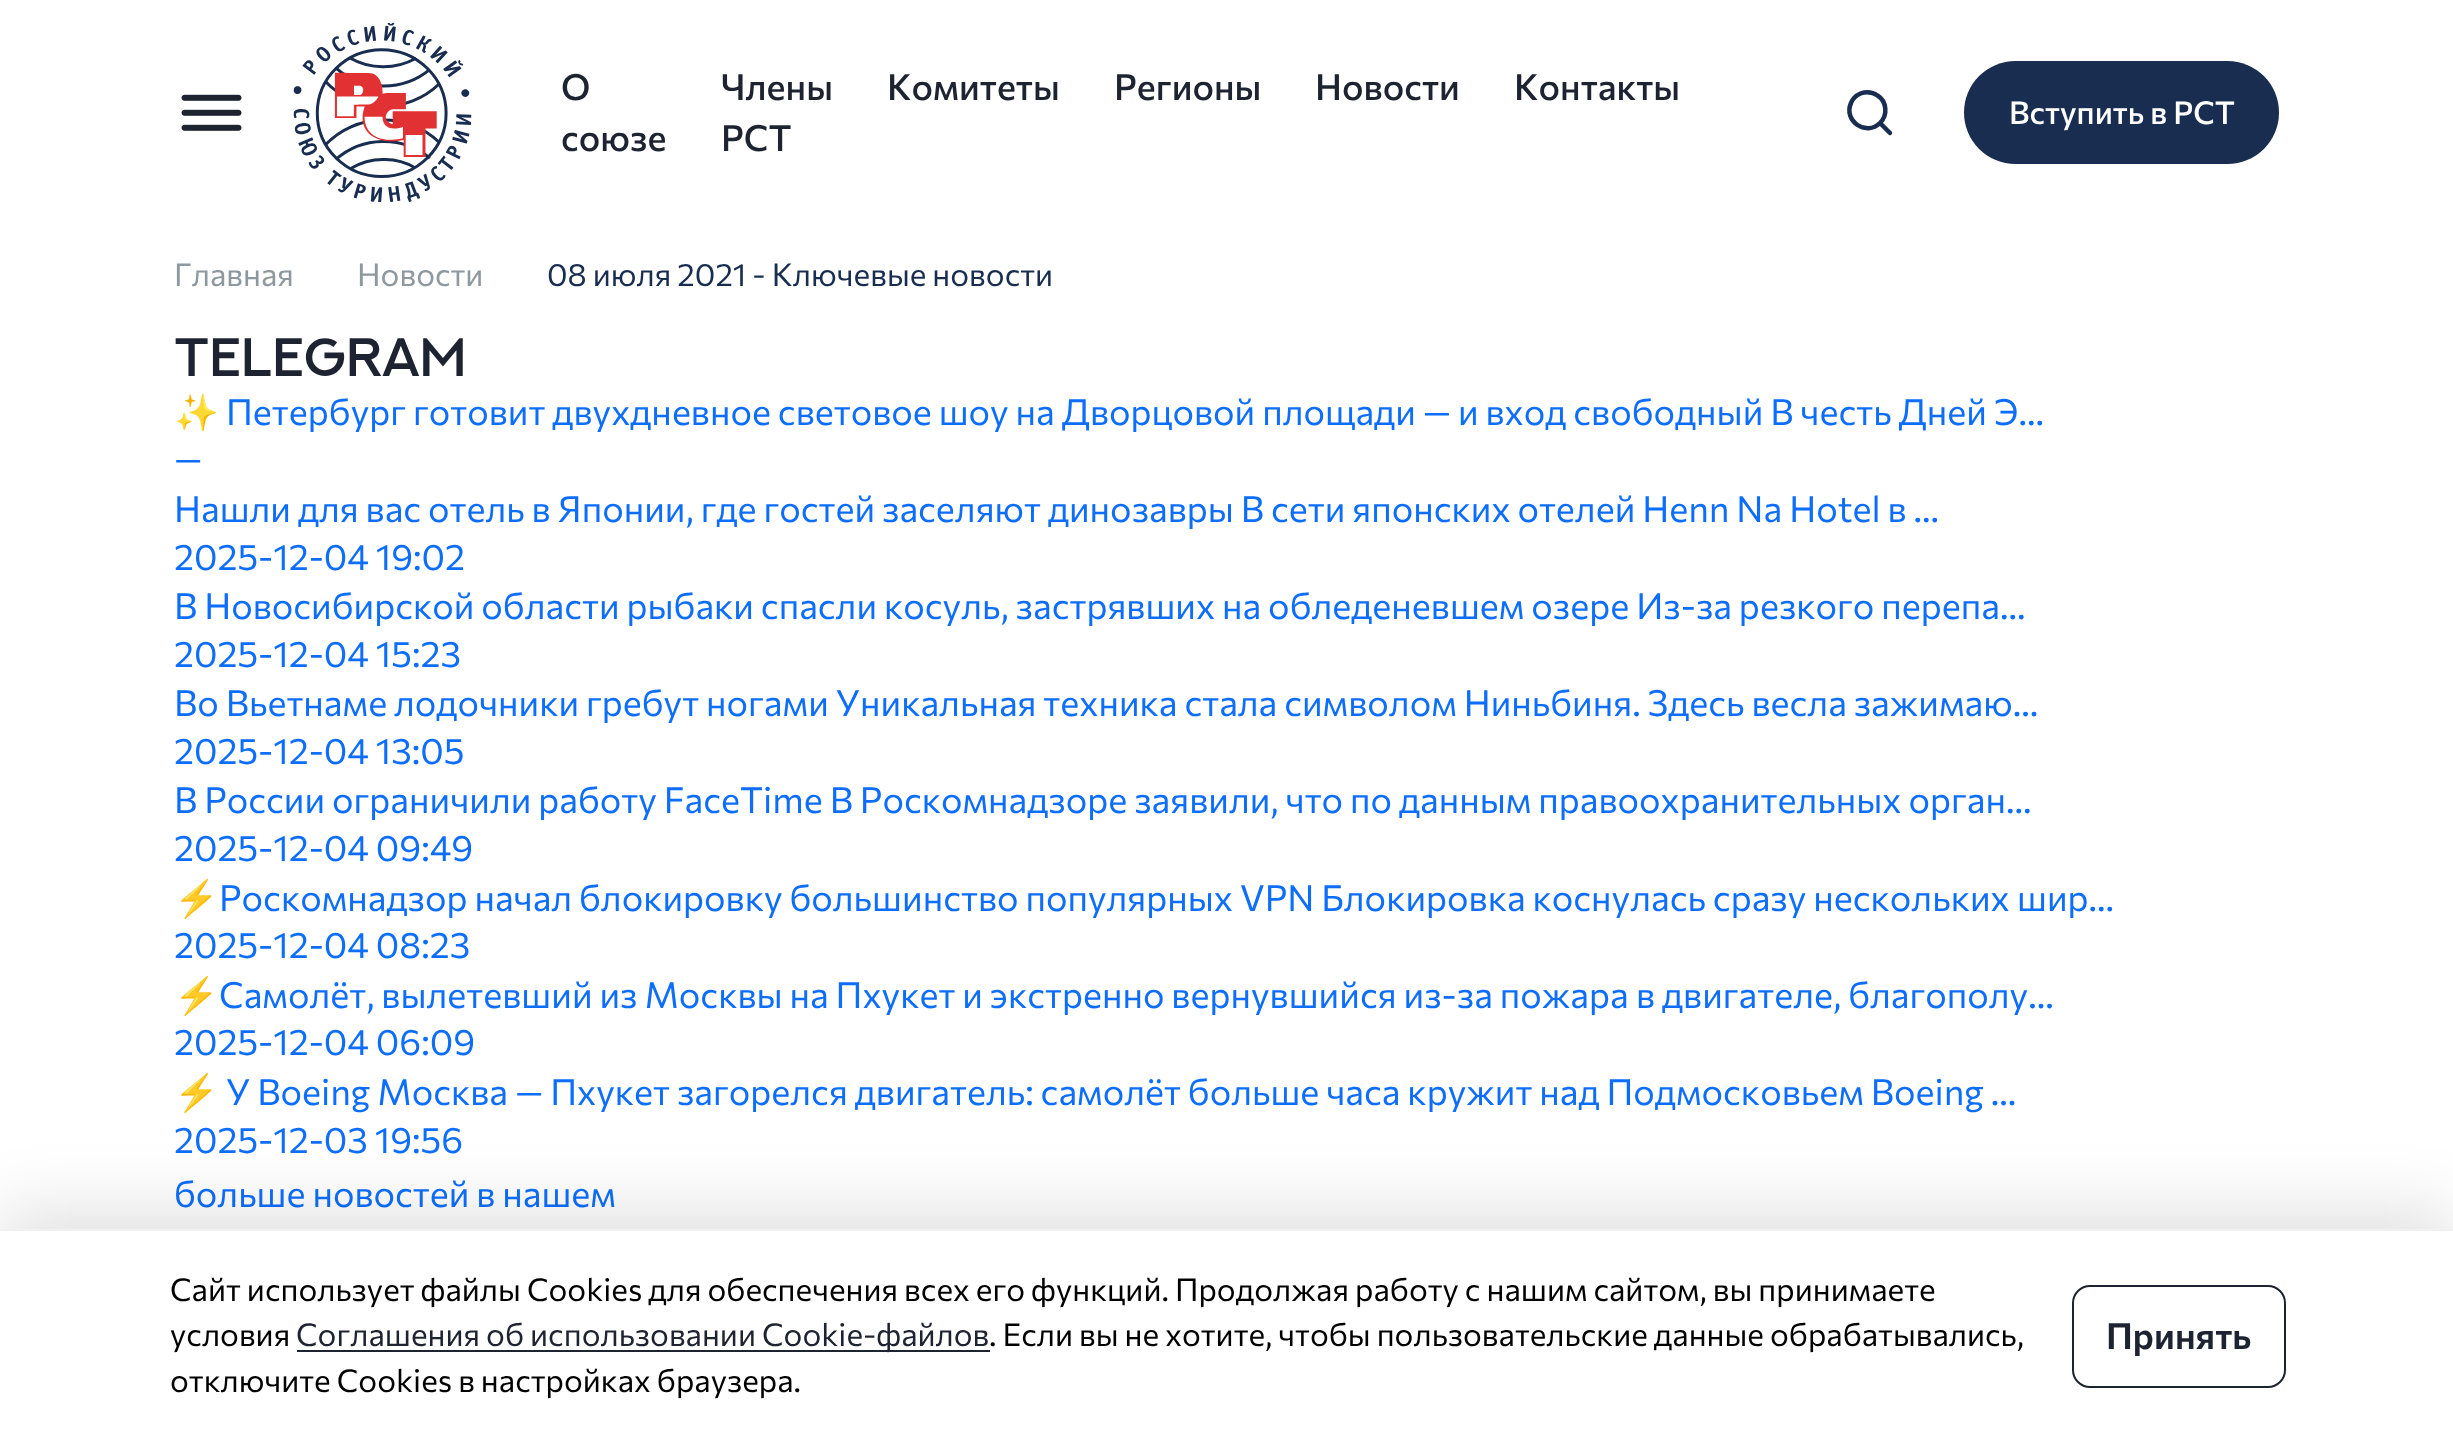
<svg xmlns="http://www.w3.org/2000/svg" width="2453" height="1439" viewBox="0 0 2453 1439">
  <style>*{font-kerning:none!important;font-variant-ligatures:none!important}</style>
  <defs>
    <filter id="blur1" x="-50%" y="-200%" width="200%" height="500%"><feGaussianBlur stdDeviation="34"/></filter>
  </defs>
  <rect width="100%" height="100%" fill="#ffffff"/>
  <image x="181" y="94" width="61" height="37" href="img1.png"/>
  <image x="293" y="23" width="179" height="180" href="img2.png"/>
  <text x="561" y="100" font-family="Commissioner" font-size="36" font-weight="100" fill="#1d2330">О</text>
  <text x="561" y="151" font-family="Commissioner" font-size="36" font-weight="100" fill="#1d2330">союзе</text>
  <text x="721" y="100" font-family="Commissioner" font-size="36" font-weight="100" fill="#1d2330">Члены</text>
  <text x="721" y="151" font-family="Commissioner" font-size="36" font-weight="100" fill="#1d2330">РСТ</text>
  <text x="887" y="100" font-family="Commissioner" font-size="36" font-weight="100" fill="#1d2330">Комитеты</text>
  <text x="1114" y="100" font-family="Commissioner" font-size="36" font-weight="100" fill="#1d2330">Регионы</text>
  <text x="1315" y="100" font-family="Commissioner" font-size="36" font-weight="100" fill="#1d2330">Новости</text>
  <text x="1514" y="100" font-family="Commissioner" font-size="36" font-weight="100" fill="#1d2330">Контакты</text>
  <path d="M1890 133L1880 123M1880 123C1888 115 1887 101.5 1877.5 95.5C1872.5 92 1866 91.5 1860.5 93.5C1856 95.5 1852.5 99 1851 103C1843 121.5 1866.5 136.5 1880 123Z" fill="none" stroke="#182d50" stroke-width="4.5" stroke-linecap="round" stroke-linejoin="round"/>
  <rect x="1964" y="61" width="315" height="103" rx="51.5" fill="#182d50"/>
  <text x="2009" y="124" font-family="Commissioner" font-size="31.5" font-weight="100" fill="#ffffff">Вступить в РСТ</text>
  <text x="174" y="286" font-family="'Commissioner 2'" font-size="31.5" font-weight="100" fill="#8d989f">Главная</text>
  <text x="357" y="286" font-family="'Commissioner 2'" font-size="31.5" font-weight="100" fill="#8d989f">Новости</text>
  <text x="547" y="286" font-family="'Commissioner 2'" font-size="31.5" font-weight="100" fill="#182d50">08 июля 2021 - Ключевые новости</text>
  <text x="174" y="376" font-family="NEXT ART" font-size="54" font-weight="600" fill="#1d2330">TELEGRAM</text>
  <text x="174" y="425" font-family="Noto Color Emoji" font-size="36" fill="#0d6efd">✨</text>
  <text x="226" y="425" font-family="'Commissioner 2'" font-size="36" font-weight="100" fill="#0d6efd">Петербург готовит двухдневное световое шоу на Дворцовой площади — и вход свободный В честь Дней Э...</text>
  <text x="174" y="472" font-family="'Commissioner 2'" font-size="36" font-weight="100" fill="#0d6efd">—</text>
  <text x="174" y="522" font-family="'Commissioner 2'" font-size="36" font-weight="100" fill="#0d6efd">Нашли для вас отель в Японии, где гостей заселяют динозавры В сети японских отелей Henn Na Hotel в ...</text>
  <text x="174" y="570" font-family="'Commissioner 2'" font-size="36" font-weight="100" fill="#0d6efd">2025-12-04 19:02</text>
  <text x="174" y="619" font-family="'Commissioner 2'" font-size="36" font-weight="100" fill="#0d6efd">В Новосибирской области рыбаки спасли косуль, застрявших на обледеневшем озере Из-за резкого перепа...</text>
  <text x="174" y="667" font-family="'Commissioner 2'" font-size="36" font-weight="100" fill="#0d6efd">2025-12-04 15:23</text>
  <text x="174" y="716" font-family="'Commissioner 2'" font-size="36" font-weight="100" fill="#0d6efd">Во Вьетнаме лодочники гребут ногами Уникальная техника стала символом Ниньбиня. Здесь весла зажимаю...</text>
  <text x="174" y="764" font-family="'Commissioner 2'" font-size="36" font-weight="100" fill="#0d6efd">2025-12-04 13:05</text>
  <text x="174" y="813" font-family="'Commissioner 2'" font-size="36" font-weight="100" fill="#0d6efd">В России ограничили работу FaceTime В Роскомнадзоре заявили, что по данным правоохранительных орган...</text>
  <text x="174" y="861" font-family="'Commissioner 2'" font-size="36" font-weight="100" fill="#0d6efd">2025-12-04 09:49</text>
  <text x="174" y="911" font-family="Noto Color Emoji" font-size="36" fill="#0d6efd">⚡</text>
  <text x="219" y="911" font-family="'Commissioner 2'" font-size="36" font-weight="100" fill="#0d6efd">Роскомнадзор начал блокировку большинство популярных VPN Блокировка коснулась сразу нескольких</text>
  <text x="2017" y="911" font-family="'Commissioner 2'" font-size="36" font-weight="100" fill="#0d6efd">шир...</text>
  <text x="174" y="958" font-family="'Commissioner 2'" font-size="36" font-weight="100" fill="#0d6efd">2025-12-04 08:23</text>
  <text x="174" y="1008" font-family="Noto Color Emoji" font-size="36" fill="#0d6efd">⚡</text>
  <text x="219" y="1008" font-family="'Commissioner 2'" font-size="36" font-weight="100" fill="#0d6efd">Самолёт, вылетевший из Москвы на Пхукет и экстренно вернувшийся из-за пожара</text>
  <text x="1636" y="1008" font-family="'Commissioner 2'" font-size="36" font-weight="100" fill="#0d6efd">в двигателе, благополу...</text>
  <text x="174" y="1055" font-family="'Commissioner 2'" font-size="36" font-weight="100" fill="#0d6efd">2025-12-04 06:09</text>
  <text x="174" y="1105" font-family="Noto Color Emoji" font-size="36" fill="#0d6efd">⚡</text>
  <text x="226" y="1105" font-family="'Commissioner 2'" font-size="36" font-weight="100" fill="#0d6efd">У Boeing Москва — Пхукет загорелся двигатель: самолёт больше часа кружит над Подмосковьем Boeing ...</text>
  <text x="174" y="1153" font-family="'Commissioner 2'" font-size="36" font-weight="100" fill="#0d6efd">2025-12-03 19:56</text>
  <text x="174" y="1207" font-family="'Commissioner 2'" font-size="36" font-weight="100" fill="#0d6efd">больше новостей в нашем</text>
  <rect x="0" y="1211" width="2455" height="211" fill="#000000" fill-opacity="0.12" filter="url(#blur1)"/>
  <rect x="0" y="1231" width="2453" height="208" fill="#ffffff"/>
  <rect x="0" y="1229" width="2453" height="2" fill="#f0f0f0"/>
  <text x="170" y="1301" font-family="'Commissioner 2'" font-size="31.5" font-weight="100" fill="#000000">Сайт использует файлы Cookies для обеспечения всех его функций. Продолжая работу с нашим сайтом, вы принимаете</text>
  <text x="170" y="1346" font-family="'Commissioner 2'" font-size="31.5" font-weight="100" fill="#000000">условия</text>
  <rect x="297" y="1350" width="693" height="2" fill="#1d2330"/>
  <text x="296" y="1346" font-family="'Commissioner 2'" font-size="31.5" font-weight="100" fill="#1d2330">Соглашения об использовании Cookie-файлов</text>
  <text x="989" y="1346" font-family="'Commissioner 2'" font-size="31.5" font-weight="100" fill="#000000">. Если вы не хотите, чтобы пользовательские данные обрабатывались,</text>
  <text x="170" y="1392" font-family="'Commissioner 2'" font-size="31.5" font-weight="100" fill="#000000">отключите Cookies в настройках браузера.</text>
  <rect x="2073" y="1286" width="212" height="101" rx="17" fill="none" stroke="#1d2330" stroke-width="2"/>
  <text x="2106" y="1349" font-family="'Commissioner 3'" font-size="36" font-weight="100" fill="#1d2330">Принять</text>
</svg>
